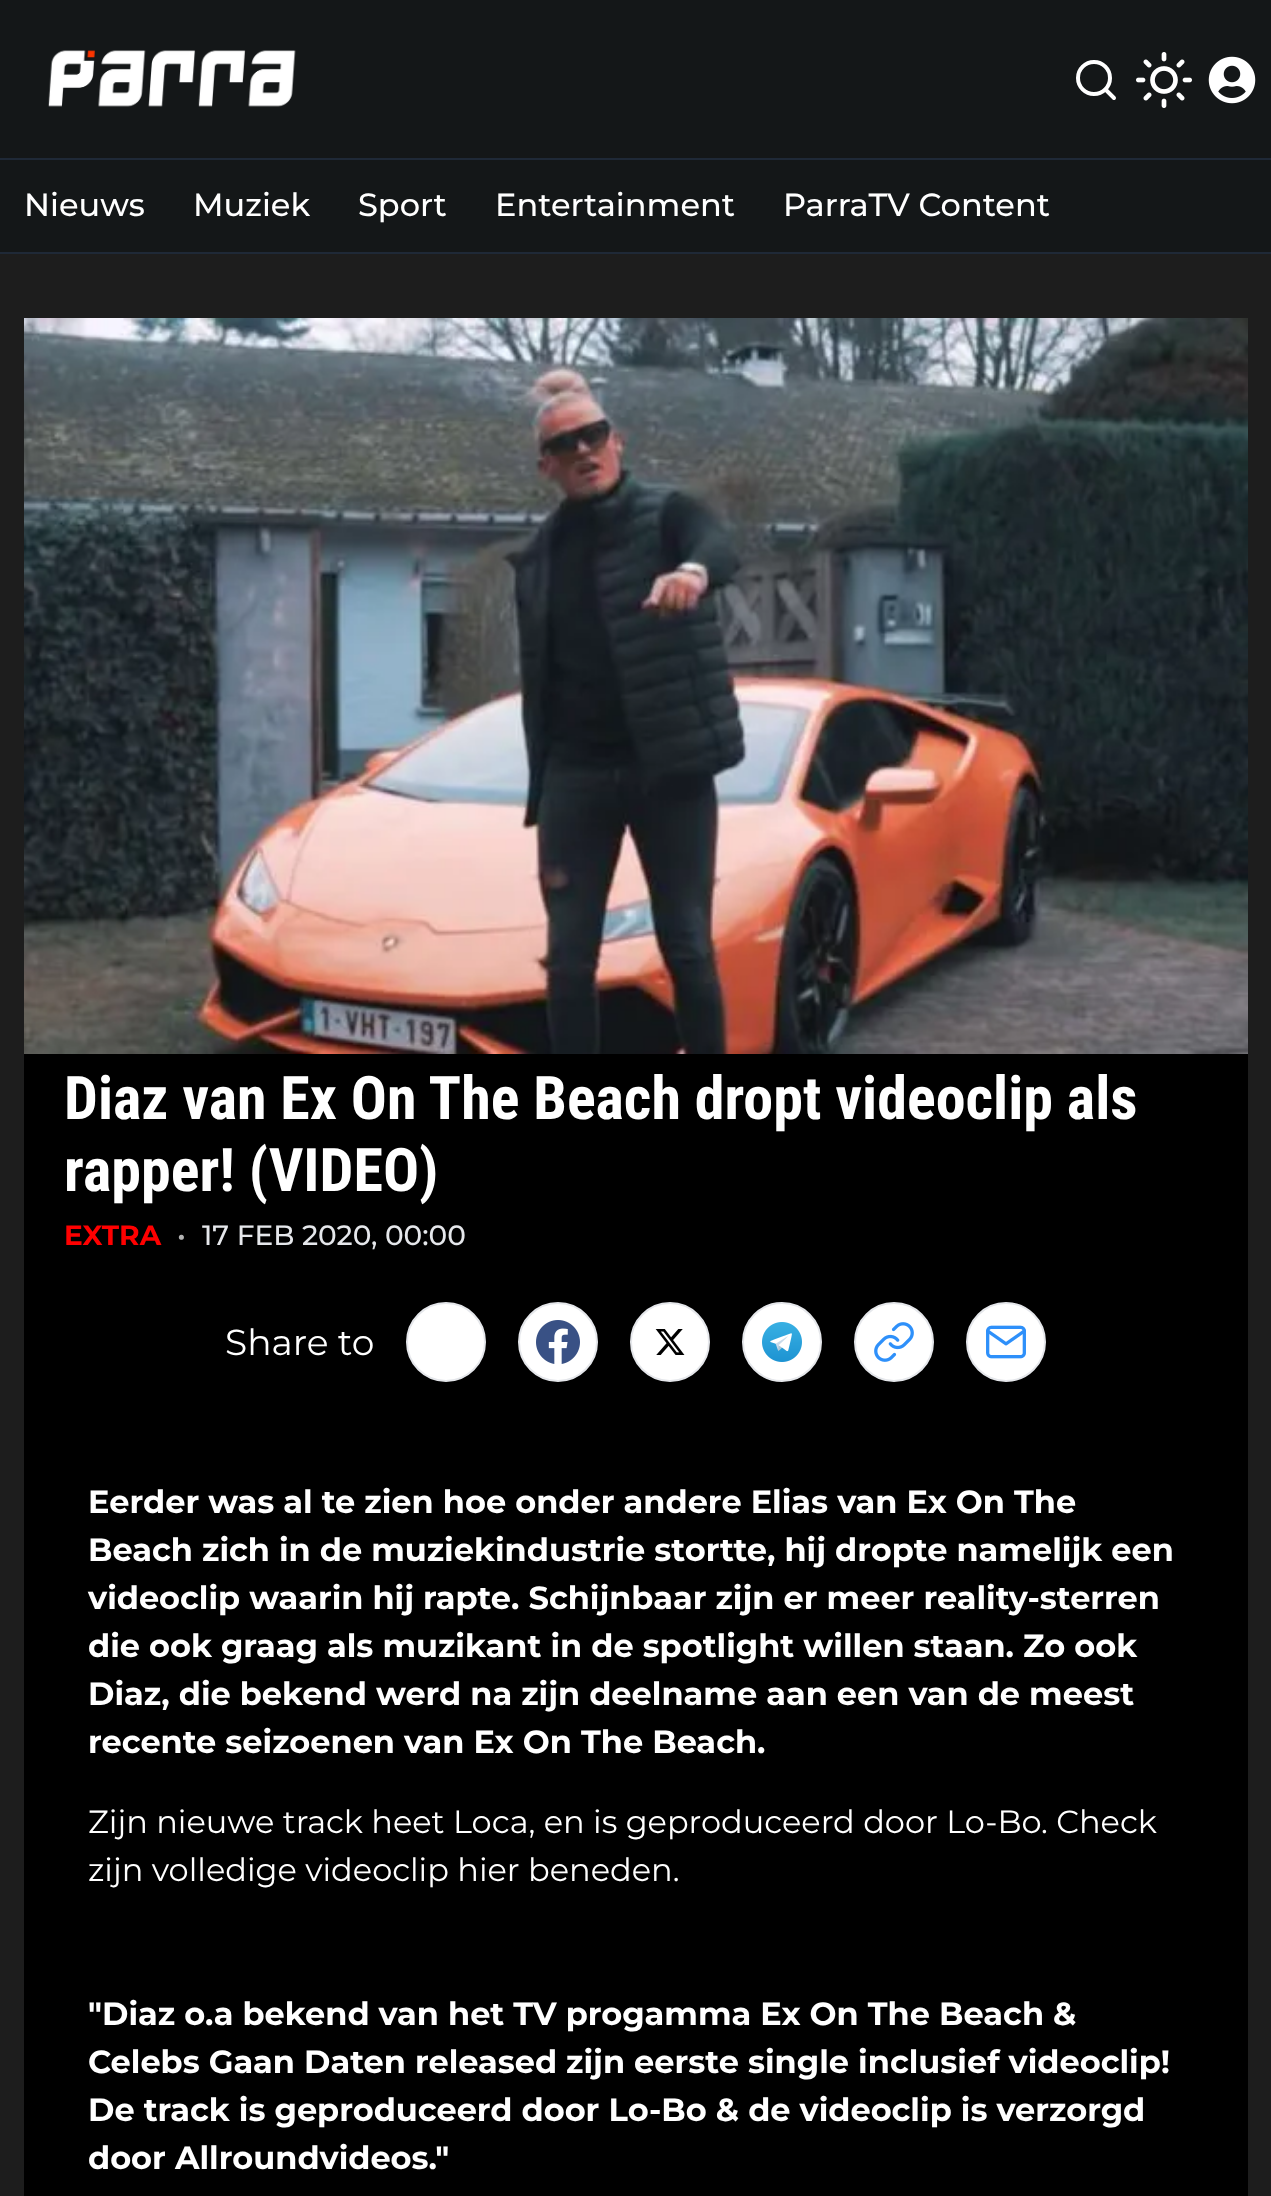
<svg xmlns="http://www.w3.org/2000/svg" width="1271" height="2196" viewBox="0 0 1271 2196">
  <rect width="100%" height="100%" fill="#1d1d1d"/>
  <rect x="0" y="0" width="1271" height="252" fill="#141718"/>
  <image x="48" y="50" width="248" height="57" href="img1.png"/>
  <circle cx="1094" cy="78" r="16" fill="none" stroke="#ffffff" stroke-width="4"/>
  <path d="M1114 98L1105.5 89.5" fill="none" stroke="#ffffff" stroke-width="4" stroke-linecap="round" stroke-linejoin="round"/>
  <image x="1136" y="52" width="56" height="56" href="img2.png"/>
  <image x="1208" y="56" width="48" height="48" href="img3.png"/>
  <rect x="0" y="158" width="1271" height="2" fill="#1f2937"/>
  <rect x="0" y="252" width="1271" height="2" fill="#1f2937"/>
  <text x="24" y="216" font-family="Montserrat" font-size="32" font-weight="500" fill="#ffffff">Nieuws</text>
  <text x="193" y="216" font-family="Montserrat" font-size="32" font-weight="500" fill="#ffffff">Muziek</text>
  <text x="358" y="216" font-family="Montserrat" font-size="32" font-weight="500" fill="#ffffff">Sport</text>
  <text x="495" y="216" font-family="Montserrat" font-size="32" font-weight="500" fill="#ffffff">Entertainment</text>
  <text x="783" y="216" font-family="Montserrat" font-size="32" font-weight="500" fill="#ffffff">ParraTV Content</text>
  <rect x="24" y="1054" width="1224" height="1142" fill="#000000"/>
  <image x="24" y="318" width="1224" height="736" href="img4.png"/>
  <text x="64" y="1119" font-family="Roboto Condensed" font-size="60" font-weight="bold" fill="#ffffff">Diaz van Ex On The Beach dropt videoclip als</text>
  <text x="64" y="1191" font-family="Roboto Condensed" font-size="60" font-weight="bold" fill="#ffffff">rapper! (VIDEO)</text>
  <text x="64" y="1245" font-family="Montserrat" font-size="28" font-weight="bold" fill="#ff0000">EXTRA</text>
  <text x="177" y="1245" font-family="Montserrat" font-size="28" font-weight="500" fill="#b3b3b3">•</text>
  <text x="202" y="1245" font-family="Montserrat" font-size="28" font-weight="500" fill="#e5e7eb">17 FEB 2020, 00:00</text>
  <text x="225" y="1355" font-family="Montserrat" font-size="36" fill="#ffffff">Share to</text>
  <circle cx="446" cy="1342" r="39" fill="#ffffff" stroke="#e5e7eb" stroke-width="2"/>
  <circle cx="558" cy="1342" r="39" fill="#ffffff" stroke="#e5e7eb" stroke-width="2"/>
  <image x="536" y="1320" width="44" height="44" href="img5.png"/>
  <circle cx="670" cy="1342" r="39" fill="#ffffff" stroke="#e5e7eb" stroke-width="2"/>
  <image x="655" y="1329" width="30" height="26" href="img6.png"/>
  <circle cx="782" cy="1342" r="39" fill="#ffffff" stroke="#e5e7eb" stroke-width="2"/>
  <image x="762" y="1322" width="40" height="40" href="img7.png"/>
  <circle cx="894" cy="1342" r="39" fill="#ffffff" stroke="#e5e7eb" stroke-width="2"/>
  <image x="874" y="1322" width="40" height="40" href="img8.png"/>
  <circle cx="1006" cy="1342" r="39" fill="#ffffff" stroke="#e5e7eb" stroke-width="2"/>
  <image x="986" y="1325" width="40" height="34" href="img9.png"/>
  <text x="88" y="1513" font-family="Montserrat" font-size="32" font-weight="bold" fill="#ffffff">Eerder was al te zien hoe onder andere Elias van Ex On The</text>
  <text x="88" y="1561" font-family="Montserrat" font-size="32" font-weight="bold" fill="#ffffff">Beach zich in de muziekindustrie stortte, hij dropte namelijk een</text>
  <text x="88" y="1609" font-family="Montserrat" font-size="32" font-weight="bold" fill="#ffffff">videoclip waarin hij rapte. Schijnbaar zijn er meer reality-sterren</text>
  <text x="88" y="1657" font-family="Montserrat" font-size="32" font-weight="bold" fill="#ffffff">die ook graag als muzikant in de spotlight willen staan. Zo ook</text>
  <text x="88" y="1705" font-family="Montserrat" font-size="32" font-weight="bold" fill="#ffffff">Diaz, die bekend werd na zijn deelname aan een van de meest</text>
  <text x="88" y="1753" font-family="Montserrat" font-size="32" font-weight="bold" fill="#ffffff">recente seizoenen van Ex On The Beach.</text>
  <text x="88" y="1833" font-family="Montserrat" font-size="32" fill="#ffffff">Zijn nieuwe track heet Loca, en is geproduceerd door Lo-Bo. Check</text>
  <text x="88" y="1881" font-family="Montserrat" font-size="32" fill="#ffffff">zijn volledige videoclip hier beneden.</text>
  <text x="88" y="2025" font-family="Montserrat" font-size="32" font-weight="bold" fill="#ffffff">"Diaz o.a bekend van het TV progamma Ex On The Beach &amp;</text>
  <text x="88" y="2073" font-family="Montserrat" font-size="32" font-weight="bold" fill="#ffffff">Celebs Gaan Daten released zijn eerste single inclusief videoclip!</text>
  <text x="88" y="2121" font-family="Montserrat" font-size="32" font-weight="bold" fill="#ffffff">De track is geproduceerd door Lo-Bo &amp; de videoclip is verzorgd</text>
  <text x="88" y="2169" font-family="Montserrat" font-size="32" font-weight="bold" fill="#ffffff">door Allroundvideos."</text>
</svg>
